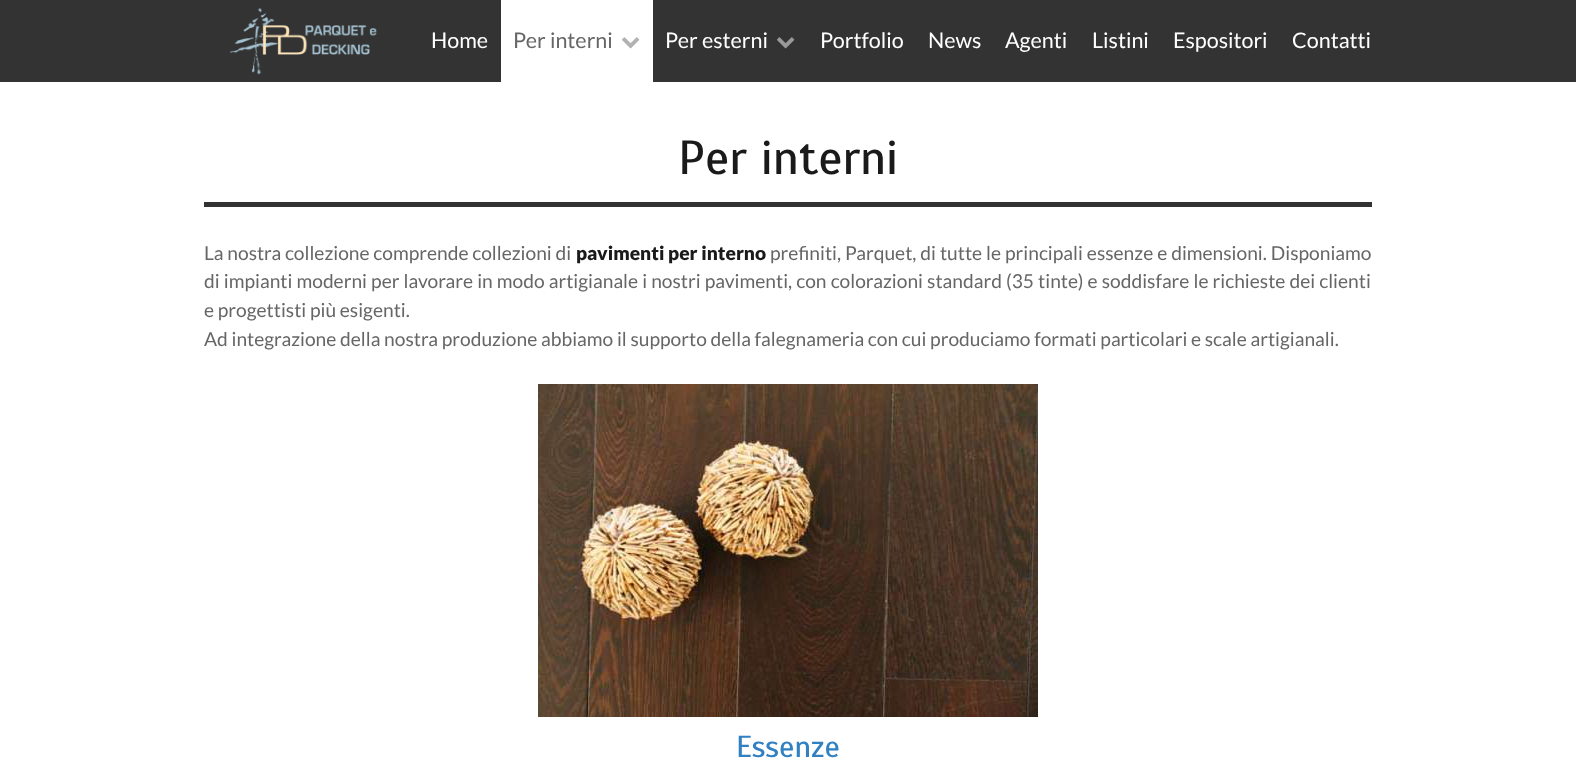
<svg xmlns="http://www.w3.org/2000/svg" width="1576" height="770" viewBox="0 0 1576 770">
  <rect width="100%" height="100%" fill="#ffffff"/>
  <rect x="0" y="0" width="1576" height="82" fill="#333333"/>
  <image x="230" y="7" width="147" height="68" href="img1.png"/>
  <text x="431" y="48" font-family="Lato" font-size="21.5" fill="#ffffff">Home</text>
  <rect x="501" y="0" width="152" height="82" fill="#ffffff"/>
  <text x="513" y="48" font-family="Lato" font-size="21.5" fill="#666666">Per interni</text>
  <image x="622" y="37" width="18" height="12" href="img2.png"/>
  <text x="665" y="48" font-family="Lato" font-size="21.5" fill="#ffffff">Per esterni</text>
  <image x="777" y="37" width="18" height="12" href="img3.png"/>
  <text x="820" y="48" font-family="Lato" font-size="21.5" fill="#ffffff">Portfolio</text>
  <text x="928" y="48" font-family="Lato" font-size="21.5" fill="#ffffff">News</text>
  <text x="1005" y="48" font-family="Lato" font-size="21.5" fill="#ffffff">Agenti</text>
  <text x="1092" y="48" font-family="Lato" font-size="21.5" fill="#ffffff">Listini</text>
  <text x="1173" y="48" font-family="Lato" font-size="21.5" fill="#ffffff">Espositori</text>
  <text x="1292" y="48" font-family="Lato" font-size="21.5" fill="#ffffff">Contatti</text>
  <rect x="204" y="202" width="1168" height="5" fill="#333333"/>
  <text x="678" y="174" font-family="Scada" font-size="48" fill="#1a1a1a">Per interni</text>
  <text x="204" y="260" font-family="Lato" font-size="19.2" fill="#666666">La nostra collezione comprende collezioni di</text>
  <text x="576" y="260" font-family="Lato" font-size="19.2" font-weight="900" fill="#1a1a1a">pavimenti per interno</text>
  <text x="770" y="260" word-spacing="0.25" font-family="Lato" font-size="19.2" fill="#666666">prefiniti, Parquet, di tutte le principali essenze e dimensioni. Disponiamo</text>
  <text x="204" y="288" word-spacing="0.4" font-family="Lato" font-size="19.2" fill="#666666">di impianti moderni per lavorare in modo artigianale i nostri pavimenti, con colorazioni standard (35 tinte) e soddisfare le richieste dei clienti</text>
  <text x="204" y="317" font-family="Lato" font-size="19.2" fill="#666666">e progettisti più esigenti.</text>
  <text x="204" y="346" font-family="Lato" font-size="19.2" fill="#666666">Ad integrazione della nostra produzione abbiamo il supporto della falegnameria con cui produciamo formati particolari e scale artigianali.</text>
  <image x="538" y="384" width="500" height="333" href="img4.png"/>
  <text x="736" y="757" font-family="Scada" font-size="30.5" fill="#3180c2">Essenze</text>
</svg>
